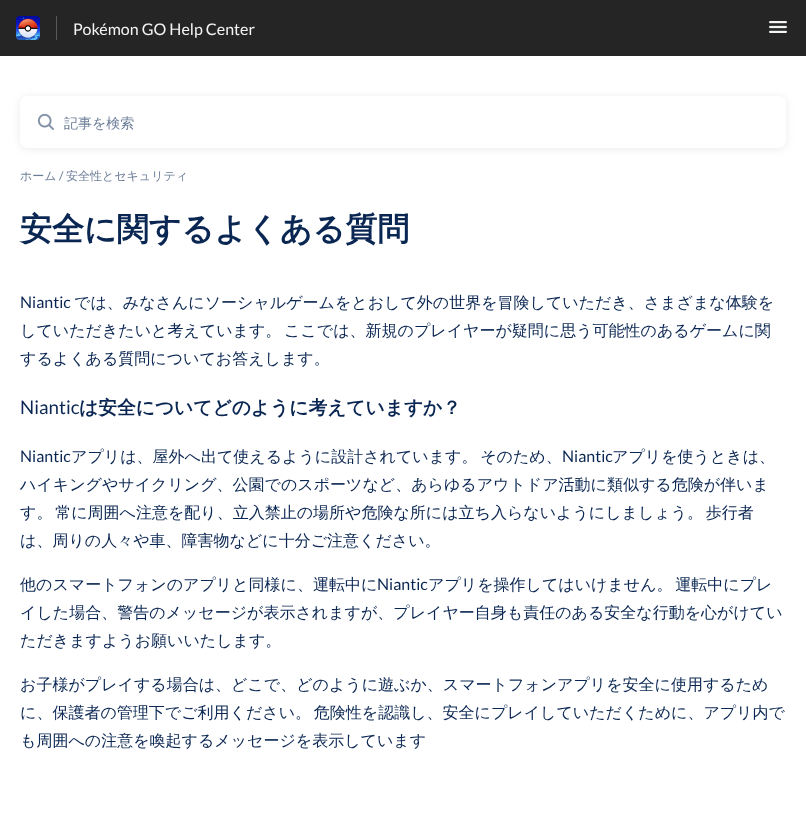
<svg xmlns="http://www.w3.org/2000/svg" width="806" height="827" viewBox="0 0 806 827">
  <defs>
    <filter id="blur1" x="-50%" y="-200%" width="200%" height="500%"><feGaussianBlur stdDeviation="4"/></filter>
  </defs>
  <rect width="100%" height="100%" fill="#ffffff"/>
  <rect x="0" y="0" width="806" height="56" fill="#252525"/>
  <rect x="56" y="16" width="1" height="24" fill="#595959"/>
  <image x="16" y="16" width="24" height="24" href="img1.png"/>
  <text x="73" y="35" font-family="Lato" font-size="16" fill="#f3f4f4">Pokémon GO Help Center</text>
  <image x="769" y="21" width="18" height="12" href="img2.png"/>
  <rect x="20" y="97" width="766" height="52" rx="8" fill="#000000" fill-opacity="0.08" filter="url(#blur1)"/>
  <rect x="20" y="96" width="766" height="52" rx="8" fill="#ffffff"/>
  <image x="37" y="113" width="17" height="17" href="img3.png"/>
  <text x="64" y="128" font-family="WenQuanYi Zen Hei" font-size="14" font-weight="500" fill="#6c7d97">記事を検索</text>
  <text x="20" y="180" font-family="WenQuanYi Zen Hei" font-size="12" font-weight="500" fill="#6c7d97">ホーム</text>
  <text x="59" y="180" font-family="Lato" font-size="12" fill="#6c7d97">/</text>
  <text x="66" y="180" font-family="WenQuanYi Zen Hei" font-size="12" font-weight="500" fill="#6c7d97">安全性とセキュリティ</text>
  <text x="20" y="240" font-family="WenQuanYi Zen Hei" font-size="32" font-weight="bold" fill="#0a2652">安全に関するよくある質問</text>
  <text x="20" y="308" font-family="Lato" font-size="16" fill="#0a2652">Niantic</text>
  <text x="74" y="308" font-family="WenQuanYi Zen Hei" font-size="16" font-weight="500" fill="#0a2652">では、みなさんにソーシャルゲームをとおして外の世界を冒険していただき、さまざまな体験を</text>
  <text x="20" y="336" word-spacing="-2" font-family="WenQuanYi Zen Hei" font-size="16" font-weight="500" fill="#0a2652">していただきたいと考えています。 ここでは、新規のプレイヤーが疑問に思う可能性のあるゲームに関</text>
  <text x="20" y="364" font-family="WenQuanYi Zen Hei" font-size="16" font-weight="500" fill="#0a2652">するよくある質問についてお答えします。</text>
  <text x="20" y="414" font-family="Lato" font-size="18.75" fill="#0a2652">Niantic</text>
  <text x="79" y="414" font-family="WenQuanYi Zen Hei" font-size="18.75" font-weight="bold" fill="#0a2652">は安全についてどのように考えていますか？</text>
  <text x="20" y="462" font-family="Lato" font-size="16" fill="#0a2652">Niantic</text>
  <text x="71" y="462" word-spacing="-2" font-family="WenQuanYi Zen Hei" font-size="16" font-weight="500" fill="#0a2652">アプリは、屋外へ出て使えるように設計されています。 そのため、</text>
  <text x="562" y="462" font-family="Lato" font-size="16" fill="#0a2652">Niantic</text>
  <text x="612" y="462" font-family="WenQuanYi Zen Hei" font-size="16" font-weight="500" fill="#0a2652">アプリを使うときは、</text>
  <text x="20" y="490" font-family="WenQuanYi Zen Hei" font-size="16" font-weight="500" fill="#0a2652">ハイキングやサイクリング、公園でのスポーツなど、あらゆるアウトドア活動に類似する危険が伴いま</text>
  <text x="20" y="518" word-spacing="-2" font-family="WenQuanYi Zen Hei" font-size="16" font-weight="500" fill="#0a2652">す。 常に周囲へ注意を配り、立入禁止の場所や危険な所には立ち入らないようにしましょう。 歩行者</text>
  <text x="20" y="546" font-family="WenQuanYi Zen Hei" font-size="16" font-weight="500" fill="#0a2652">は、周りの人々や車、障害物などに十分ご注意ください。</text>
  <text x="20" y="590" font-family="WenQuanYi Zen Hei" font-size="16" font-weight="500" fill="#0a2652">他のスマートフォンのアプリと同様に、運転中に</text>
  <text x="377" y="590" font-family="Lato" font-size="16" fill="#0a2652">Niantic</text>
  <text x="428" y="590" word-spacing="-2" font-family="WenQuanYi Zen Hei" font-size="16" font-weight="500" fill="#0a2652">アプリを操作してはいけません。 運転中にプレ</text>
  <text x="20" y="618" font-family="WenQuanYi Zen Hei" font-size="16" font-weight="500" fill="#0a2652">イした場合、警告のメッセージが表示されますが、プレイヤー自身も責任のある安全な行動を心がけてい</text>
  <text x="20" y="646" font-family="WenQuanYi Zen Hei" font-size="16" font-weight="500" fill="#0a2652">ただきますようお願いいたします。</text>
  <text x="20" y="690" font-family="WenQuanYi Zen Hei" font-size="16" font-weight="500" fill="#0a2652">お子様がプレイする場合は、どこで、どのように遊ぶか、スマートフォンアプリを安全に使用するため</text>
  <text x="20" y="718" word-spacing="-2" font-family="WenQuanYi Zen Hei" font-size="16" font-weight="500" fill="#0a2652">に、保護者の管理下でご利用ください。 危険性を認識し、安全にプレイしていただくために、アプリ内で</text>
  <text x="20" y="746" font-family="WenQuanYi Zen Hei" font-size="16" font-weight="500" fill="#0a2652">も周囲への注意を喚起するメッセージを表示しています</text>
</svg>
